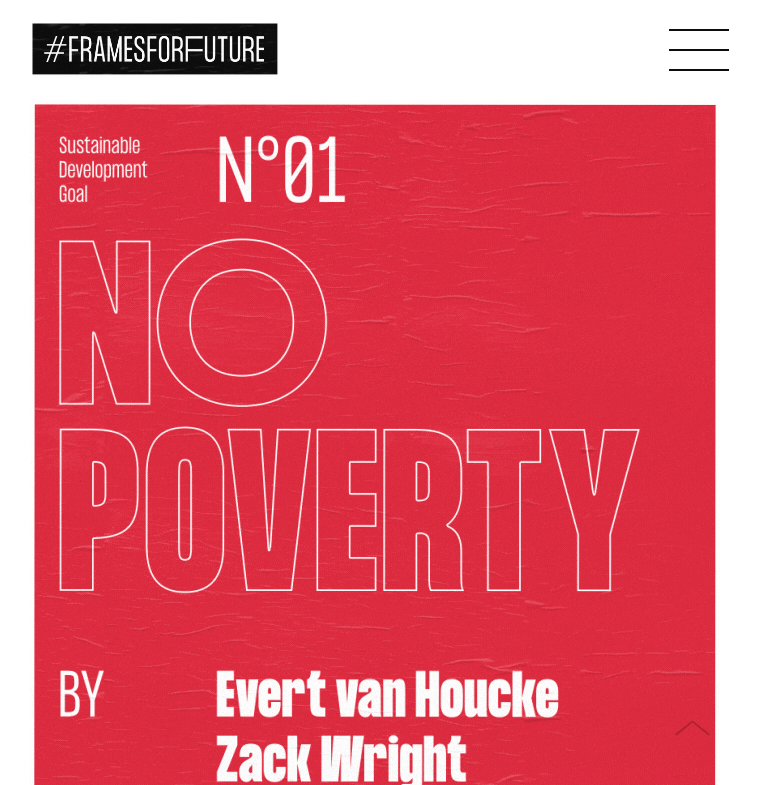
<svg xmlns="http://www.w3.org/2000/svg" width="759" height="785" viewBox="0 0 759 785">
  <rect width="100%" height="100%" fill="#ffffff"/>
  <image x="32" y="23" width="247" height="54" href="img1.png"/>
  <rect x="669" y="49" width="60" height="2" fill="#0d0d0d"/>
  <rect x="669" y="29" width="60" height="2" fill="#0d0d0d"/>
  <rect x="669" y="69" width="60" height="2" fill="#0d0d0d"/>
  <image x="30" y="100" width="690" height="685" href="img2.png"/>
  <path d="M710 734L708.5 735.5L692.5 722.5L676.5 735.5L675 734L692.5 720.5Z" fill="#000000" fill-opacity="0.2"/>
</svg>
